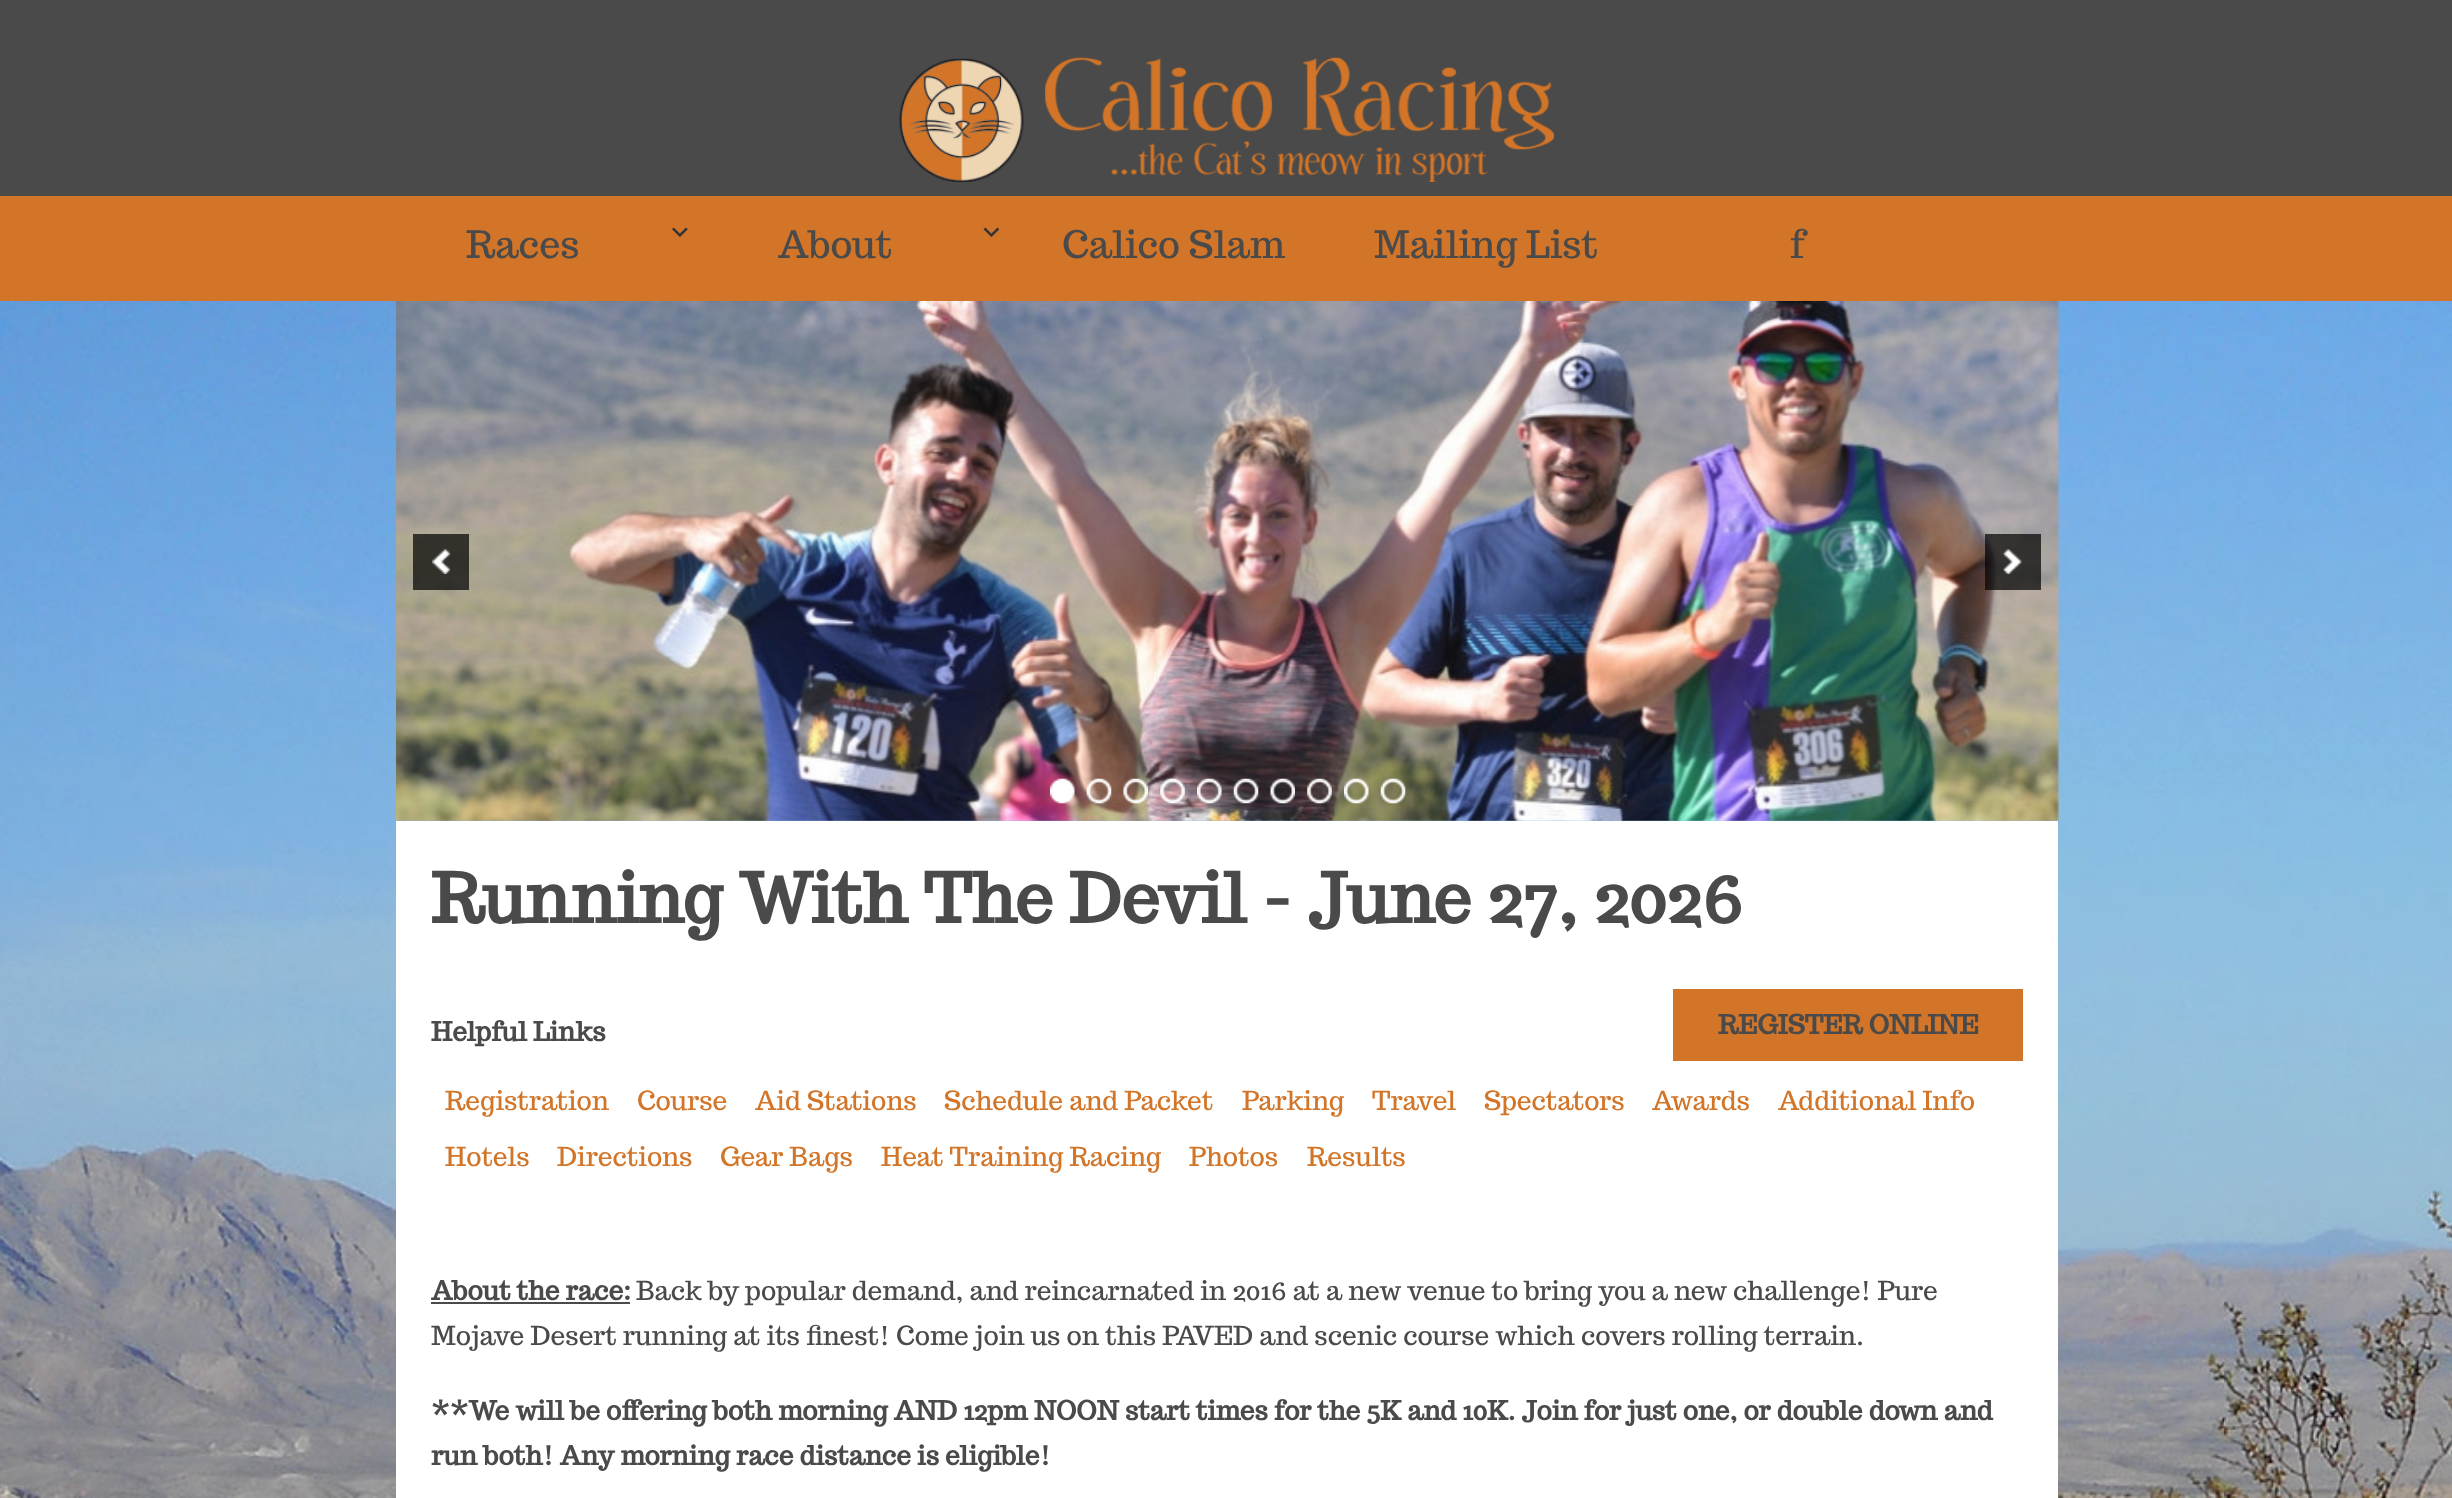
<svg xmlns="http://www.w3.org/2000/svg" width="2452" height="1498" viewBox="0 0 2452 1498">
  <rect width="100%" height="100%" fill="#ffffff"/>
  <image x="0" y="301" width="2452" height="1197" href="img1.png"/>
  <rect x="0" y="0" width="2452" height="196" fill="#4a4a4a"/>
  <image x="899" y="57" width="655" height="125" href="img2.png"/>
  <rect x="0" y="196" width="2452" height="105" fill="#d27528"/>
  <text x="466" y="258" font-family="Trocchi" font-size="37.75" fill="#4a4a4a">Races</text>
  <image x="672" y="227" width="16" height="10" href="img3.png"/>
  <text x="778" y="258" font-family="Trocchi" font-size="37.75" fill="#4a4a4a">About</text>
  <image x="983" y="227" width="17" height="10" href="img4.png"/>
  <text x="1062" y="258" font-family="Trocchi" font-size="37.75" fill="#4a4a4a">Calico Slam</text>
  <text x="1374" y="258" font-family="Trocchi" font-size="37.75" fill="#4a4a4a">Mailing List</text>
  <text x="1790" y="258" font-family="Trocchi" font-size="37.75" fill="#4a4a4a">f</text>
  <image x="396" y="301" width="1663" height="520" href="img5.png"/>
  <rect x="413" y="534" width="56" height="56" fill="#000000" fill-opacity="0.7"/>
  <image x="432" y="549" width="18" height="25" href="img6.png"/>
  <rect x="1985" y="534" width="56" height="56" fill="#000000" fill-opacity="0.7"/>
  <image x="2003" y="549" width="19" height="25" href="img7.png"/>
  <image x="1050" y="778" width="25" height="26" href="img8.png"/>
  <image x="1086" y="778" width="26" height="26" href="img9.png"/>
  <image x="1123" y="778" width="25" height="26" href="img10.png"/>
  <image x="1160" y="778" width="25" height="26" href="img11.png"/>
  <image x="1197" y="778" width="25" height="26" href="img12.png"/>
  <image x="1233" y="778" width="26" height="26" href="img13.png"/>
  <image x="1270" y="778" width="25" height="26" href="img14.png"/>
  <image x="1307" y="778" width="25" height="26" href="img15.png"/>
  <image x="1344" y="778" width="25" height="26" href="img16.png"/>
  <image x="1380" y="778" width="26" height="26" href="img17.png"/>
  <rect x="396" y="821" width="1662" height="677" fill="#ffffff"/>
  <text x="431" y="923" font-family="Trocchi" font-size="68.25" font-weight="bold" fill="#4a4a4a">Running With The Devil - June 27, 2026</text>
  <text x="431" y="1041" font-family="Trocchi" font-size="26.25" font-weight="bold" fill="#4a4a4a">Helpful Links</text>
  <rect x="1673" y="989" width="350" height="72" fill="#d27528"/>
  <text x="1718" y="1034" font-family="Trocchi" font-size="26.25" font-weight="bold" fill="#4a4a4a">REGISTER ONLINE</text>
  <text x="445" y="1110" font-family="Trocchi" font-size="26.25" fill="#d27528">Registration</text>
  <text x="637" y="1110" font-family="Trocchi" font-size="26.25" fill="#d27528">Course</text>
  <text x="755" y="1110" font-family="Trocchi" font-size="26.25" fill="#d27528">Aid Stations</text>
  <text x="944" y="1110" font-family="Trocchi" font-size="26.25" fill="#d27528">Schedule and Packet</text>
  <text x="1242" y="1110" font-family="Trocchi" font-size="26.25" fill="#d27528">Parking</text>
  <text x="1372" y="1110" font-family="Trocchi" font-size="26.25" fill="#d27528">Travel</text>
  <text x="1484" y="1110" font-family="Trocchi" font-size="26.25" fill="#d27528">Spectators</text>
  <text x="1652" y="1110" font-family="Trocchi" font-size="26.25" fill="#d27528">Awards</text>
  <text x="1778" y="1110" font-family="Trocchi" font-size="26.25" fill="#d27528">Additional Info</text>
  <text x="445" y="1166" font-family="Trocchi" font-size="26.25" fill="#d27528">Hotels</text>
  <text x="557" y="1166" font-family="Trocchi" font-size="26.25" fill="#d27528">Directions</text>
  <text x="720" y="1166" font-family="Trocchi" font-size="26.25" fill="#d27528">Gear Bags</text>
  <text x="881" y="1166" font-family="Trocchi" font-size="26.25" fill="#d27528">Heat Training Racing</text>
  <text x="1189" y="1166" font-family="Trocchi" font-size="26.25" fill="#d27528">Photos</text>
  <text x="1307" y="1166" font-family="Trocchi" font-size="26.25" fill="#d27528">Results</text>
  <text x="431" y="1300" font-family="Trocchi" font-size="26.25" font-weight="bold" fill="#4a4a4a">About the race:</text>
  <rect x="431" y="1302" width="199" height="2" fill="#4a4a4a"/>
  <text x="636" y="1300" font-family="Trocchi" font-size="26.25" fill="#4a4a4a">Back by popular demand, and reincarnated in 2016 at a new venue to bring you a new challenge! Pure</text>
  <text x="431" y="1345" font-family="Trocchi" font-size="26.25" fill="#4a4a4a">Mojave Desert running at its finest! Come join us on this PAVED and scenic course which covers rolling terrain.</text>
  <text x="431" y="1420" font-family="Trocchi" font-size="26.25" font-weight="bold" fill="#4a4a4a">**We will be offering both morning AND 12pm NOON start times for the 5K and 10K. Join for just one, or double down and</text>
  <text x="431" y="1465" font-family="Trocchi" font-size="26.25" font-weight="bold" fill="#4a4a4a">run both! Any morning race distance is eligible!</text>
</svg>
